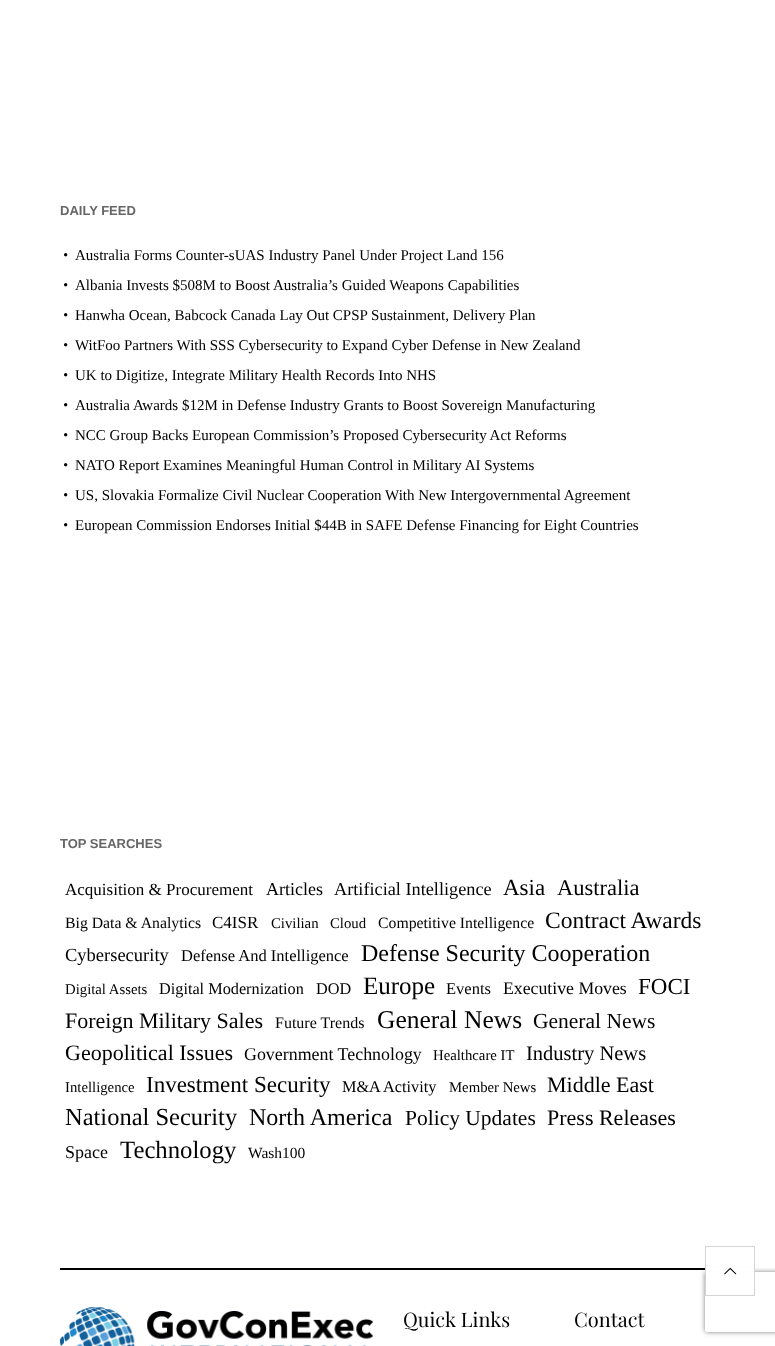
<svg xmlns="http://www.w3.org/2000/svg" width="775" height="1346" viewBox="0 0 775 1346">
  <defs>
    <clipPath id="clip1"><path d="M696 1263H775V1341H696ZM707 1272H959C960 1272 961 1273 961 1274V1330C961 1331 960 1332 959 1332H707C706 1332 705 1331 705 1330V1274C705 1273 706 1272 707 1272Z" clip-rule="evenodd"/></clipPath>
    <filter id="blur1" x="-50%" y="-200%" width="200%" height="500%"><feGaussianBlur stdDeviation="2.5"/></filter>
  </defs>
  <rect width="100%" height="100%" fill="#ffffff"/>
  <rect x="60" y="1268" width="645" height="2" fill="#000000"/>
  <g clip-path="url(#clip1)">
    <rect x="705" y="1272" width="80" height="60" rx="2" fill="#808080" filter="url(#blur1)"/>
  </g>
  <rect x="706" y="1267" width="69" height="1" fill="#ffffff"/>
  <text x="60" y="215" font-family="Liberation Sans" font-size="13" font-weight="bold" fill="#666666">DAILY FEED</text>
  <image x="64" y="253" width="4" height="4" href="img1.png"/>
  <text x="75" y="260" font-family="Liberation Serif" font-size="15" fill="#000000">Australia Forms Counter-sUAS Industry Panel Under Project Land 156</text>
  <image x="64" y="283" width="4" height="4" href="img1.png"/>
  <text x="75" y="290" font-family="Liberation Serif" font-size="15" fill="#000000">Albania Invests $508M to Boost Australia’s Guided Weapons Capabilities</text>
  <image x="64" y="313" width="4" height="4" href="img1.png"/>
  <text x="75" y="320" font-family="Liberation Serif" font-size="15" fill="#000000">Hanwha Ocean, Babcock Canada Lay Out CPSP Sustainment, Delivery Plan</text>
  <image x="64" y="343" width="4" height="4" href="img1.png"/>
  <text x="75" y="350" font-family="Liberation Serif" font-size="15" fill="#000000">WitFoo Partners With SSS Cybersecurity to Expand Cyber Defense in New Zealand</text>
  <image x="64" y="373" width="4" height="4" href="img1.png"/>
  <text x="75" y="380" font-family="Liberation Serif" font-size="15" fill="#000000">UK to Digitize, Integrate Military Health Records Into NHS</text>
  <image x="64" y="403" width="4" height="4" href="img1.png"/>
  <text x="75" y="410" font-family="Liberation Serif" font-size="15" fill="#000000">Australia Awards $12M in Defense Industry Grants to Boost Sovereign Manufacturing</text>
  <image x="64" y="433" width="4" height="4" href="img1.png"/>
  <text x="75" y="440" font-family="Liberation Serif" font-size="15" fill="#000000">NCC Group Backs European Commission’s Proposed Cybersecurity Act Reforms</text>
  <image x="64" y="463" width="4" height="4" href="img1.png"/>
  <text x="75" y="470" font-family="Liberation Serif" font-size="15" fill="#000000">NATO Report Examines Meaningful Human Control in Military AI Systems</text>
  <image x="64" y="493" width="4" height="4" href="img1.png"/>
  <text x="75" y="500" font-family="Liberation Serif" font-size="15" fill="#000000">US, Slovakia Formalize Civil Nuclear Cooperation With New Intergovernmental Agreement</text>
  <image x="64" y="523" width="4" height="4" href="img1.png"/>
  <text x="75" y="530" font-family="Liberation Serif" font-size="15" fill="#000000">European Commission Endorses Initial $44B in SAFE Defense Financing for Eight Countries</text>
  <text x="60" y="848" font-family="Liberation Sans" font-size="13" font-weight="bold" fill="#666666">TOP SEARCHES</text>
  <text x="65" y="895" font-family="Liberation Serif" font-size="17" fill="#000000">Acquisition &amp; Procurement</text>
  <text x="266" y="895" font-family="Liberation Serif" font-size="18" fill="#000000">Articles</text>
  <text x="334" y="895" font-family="Liberation Serif" font-size="18.25" fill="#000000">Artificial Intelligence</text>
  <text x="503" y="895" font-family="Liberation Serif" font-size="23" fill="#000000">Asia</text>
  <text x="557" y="895" font-family="Liberation Serif" font-size="22.5" fill="#000000">Australia</text>
  <text x="65" y="928" font-family="Liberation Serif" font-size="15.75" fill="#000000">Big Data &amp; Analytics</text>
  <text x="212" y="928" font-family="Liberation Serif" font-size="17" fill="#000000">C4ISR</text>
  <text x="271" y="928" font-family="Liberation Serif" font-size="14.75" fill="#000000">Civilian</text>
  <text x="330" y="928" font-family="Liberation Serif" font-size="14.75" fill="#000000">Cloud</text>
  <text x="378" y="928" font-family="Liberation Serif" font-size="15.75" fill="#000000">Competitive Intelligence</text>
  <text x="545" y="928" font-family="Liberation Serif" font-size="23.5" fill="#000000">Contract Awards</text>
  <text x="65" y="961" font-family="Liberation Serif" font-size="18.5" fill="#000000">Cybersecurity</text>
  <text x="181" y="961" font-family="Liberation Serif" font-size="16.5" fill="#000000">Defense And Intelligence</text>
  <text x="361" y="961" font-family="Liberation Serif" font-size="24" fill="#000000">Defense Security Cooperation</text>
  <text x="65" y="994" font-family="Liberation Serif" font-size="14.75" fill="#000000">Digital Assets</text>
  <text x="159" y="994" font-family="Liberation Serif" font-size="16.25" fill="#000000">Digital Modernization</text>
  <text x="316" y="994" font-family="Liberation Serif" font-size="16.25" fill="#000000">DOD</text>
  <text x="363" y="994" font-family="Liberation Serif" font-size="25" fill="#000000">Europe</text>
  <text x="446" y="994" font-family="Liberation Serif" font-size="16.5" fill="#000000">Events</text>
  <text x="503" y="994" font-family="Liberation Serif" font-size="17.75" fill="#000000">Executive Moves</text>
  <text x="638" y="994" font-family="Liberation Serif" font-size="23" fill="#000000">FOCI</text>
  <text x="65" y="1028" font-family="Liberation Serif" font-size="22" fill="#000000">Foreign Military Sales</text>
  <text x="275" y="1028" font-family="Liberation Serif" font-size="16" fill="#000000">Future Trends</text>
  <text x="377" y="1028" font-family="Liberation Serif" font-size="25.5" fill="#000000">General News</text>
  <text x="533" y="1028" font-family="Liberation Serif" font-size="21.5" fill="#000000">General News</text>
  <text x="65" y="1060" font-family="Liberation Serif" font-size="22" fill="#000000">Geopolitical Issues</text>
  <text x="244" y="1060" font-family="Liberation Serif" font-size="17.9" fill="#000000">Government Technology</text>
  <text x="433" y="1060" font-family="Liberation Serif" font-size="14.75" fill="#000000">Healthcare IT</text>
  <text x="526" y="1060" font-family="Liberation Serif" font-size="20.5" fill="#000000">Industry News</text>
  <text x="65" y="1092" font-family="Liberation Serif" font-size="14.75" fill="#000000">Intelligence</text>
  <text x="146" y="1092" font-family="Liberation Serif" font-size="23" fill="#000000">Investment Security</text>
  <text x="342" y="1092" font-family="Liberation Serif" font-size="16.25" fill="#000000">M&amp;A Activity</text>
  <text x="449" y="1092" font-family="Liberation Serif" font-size="14.75" fill="#000000">Member News</text>
  <text x="547" y="1092" font-family="Liberation Serif" font-size="22" fill="#000000">Middle East</text>
  <text x="65" y="1125" font-family="Liberation Serif" font-size="24.5" fill="#000000">National Security</text>
  <text x="249" y="1125" font-family="Liberation Serif" font-size="24" fill="#000000">North America</text>
  <text x="405" y="1125" font-family="Liberation Serif" font-size="21.5" fill="#000000">Policy Updates</text>
  <text x="547" y="1125" font-family="Liberation Serif" font-size="22" fill="#000000">Press Releases</text>
  <text x="65" y="1158" font-family="Liberation Serif" font-size="18" fill="#000000">Space</text>
  <text x="120" y="1158" font-family="Liberation Serif" font-size="24.75" fill="#000000">Technology</text>
  <text x="248" y="1158" font-family="Liberation Serif" font-size="15.5" fill="#000000">Wash100</text>
  <rect x="706" y="1268" width="48" height="5" fill="#ffffff"/>
  <rect x="705.5" y="1246.5" width="49" height="49" fill="none" stroke="#d4d4d4"/>
  <image x="724" y="1267" width="13" height="8" href="img2.png"/>
  <image x="60" y="1307" width="313" height="39" href="img3.png"/>
  <text x="403" y="1327" font-family="Playfair Display" font-size="20" fill="#000000">Quick Links</text>
  <text x="574" y="1327" font-family="Playfair Display" font-size="20" fill="#000000">Contact</text>
</svg>
